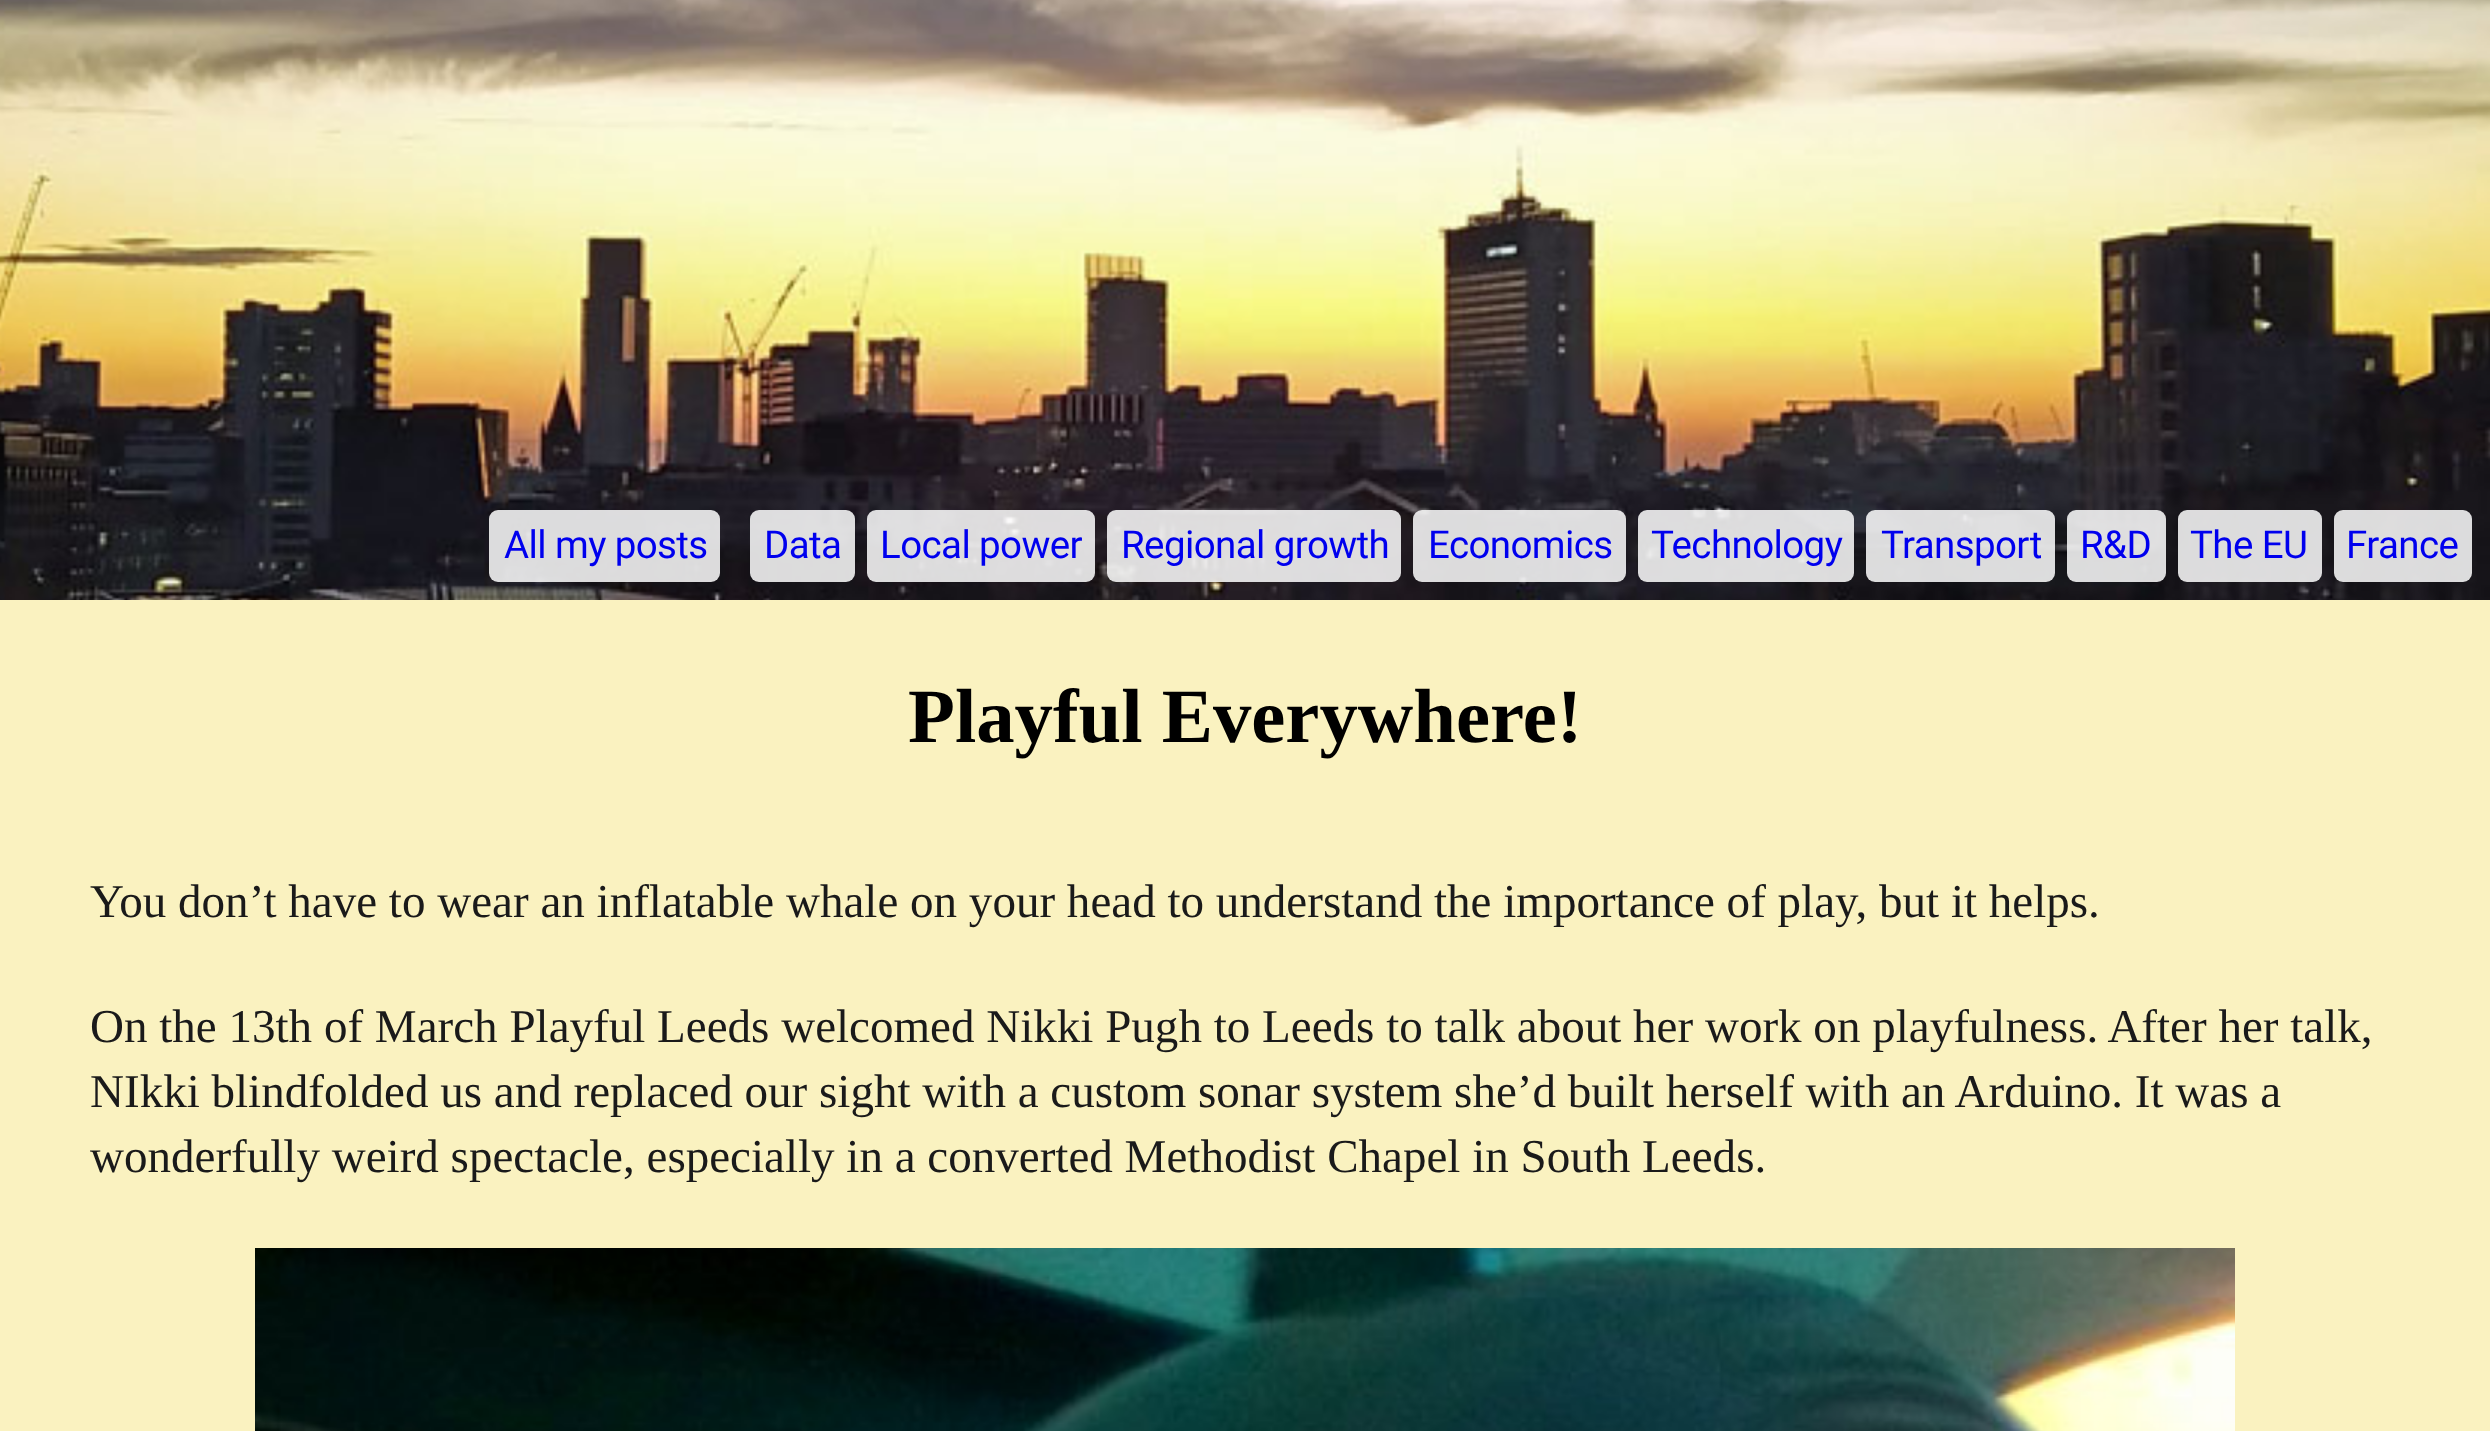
<svg xmlns="http://www.w3.org/2000/svg" width="2490" height="1431" viewBox="0 0 2490 1431">
  <rect width="100%" height="100%" fill="#faf2c0"/>
  <image x="0" y="0" width="2490" height="600" href="img1.png"/>
  <rect x="489" y="510" width="231" height="72" rx="9" fill="#ffffff" fill-opacity="0.85"/>
  <text x="504" y="558" font-family="Roboto" font-size="38.5" letter-spacing="-0.6" fill="#0000ee">All my posts</text>
  <rect x="750" y="510" width="105" height="72" rx="9" fill="#ffffff" fill-opacity="0.85"/>
  <text x="764" y="558" font-family="Roboto" font-size="38.5" letter-spacing="-0.6" fill="#0000ee">Data</text>
  <rect x="867" y="510" width="228" height="72" rx="9" fill="#ffffff" fill-opacity="0.85"/>
  <text x="880" y="558" font-family="Roboto" font-size="38.5" letter-spacing="-0.6" fill="#0000ee">Local power</text>
  <rect x="1107" y="510" width="294" height="72" rx="9" fill="#ffffff" fill-opacity="0.85"/>
  <text x="1121" y="558" font-family="Roboto" font-size="38.5" letter-spacing="-0.6" fill="#0000ee">Regional growth</text>
  <rect x="1413" y="510" width="213" height="72" rx="9" fill="#ffffff" fill-opacity="0.85"/>
  <text x="1428" y="558" font-family="Roboto" font-size="38.5" letter-spacing="-0.6" fill="#0000ee">Economics</text>
  <rect x="1638" y="510" width="216" height="72" rx="9" fill="#ffffff" fill-opacity="0.85"/>
  <text x="1651" y="558" font-family="Roboto" font-size="38.5" letter-spacing="-0.6" fill="#0000ee">Technology</text>
  <rect x="1866" y="510" width="189" height="72" rx="9" fill="#ffffff" fill-opacity="0.85"/>
  <text x="1881" y="558" font-family="Roboto" font-size="38.5" letter-spacing="-0.6" fill="#0000ee">Transport</text>
  <rect x="2067" y="510" width="99" height="72" rx="9" fill="#ffffff" fill-opacity="0.85"/>
  <text x="2080" y="558" font-family="Roboto" font-size="38.5" letter-spacing="-0.6" fill="#0000ee">R&amp;D</text>
  <rect x="2178" y="510" width="144" height="72" rx="9" fill="#ffffff" fill-opacity="0.85"/>
  <text x="2190" y="558" font-family="Roboto" font-size="38.5" letter-spacing="-0.6" fill="#0000ee">The EU</text>
  <rect x="2334" y="510" width="138" height="72" rx="9" fill="#ffffff" fill-opacity="0.85"/>
  <text x="2346" y="558" font-family="Roboto" font-size="38.5" letter-spacing="-0.6" fill="#0000ee">France</text>
  <text x="908" y="742" font-family="Liberation Serif" font-size="76.75" font-weight="bold" fill="#000000">Playful Everywhere!</text>
  <text x="90" y="917" font-family="Liberation Serif" font-size="47.05" fill="#1a1a1a">You don’t have to wear an inflatable whale on your head to understand the importance of play, but it helps.</text>
  <text x="90" y="1042" font-family="Liberation Serif" font-size="47.05" fill="#1a1a1a">On the 13th of March Playful Leeds welcomed Nikki Pugh to Leeds to talk about her work on playfulness. After her talk,</text>
  <text x="90" y="1107" font-family="Liberation Serif" font-size="47.05" fill="#1a1a1a">NIkki blindfolded us and replaced our sight with a custom sonar system she’d built herself with an Arduino. It was a</text>
  <text x="90" y="1172" font-family="Liberation Serif" font-size="47.05" fill="#1a1a1a">wonderfully weird spectacle, especially in a converted Methodist Chapel in South Leeds.</text>
  <image x="255" y="1248" width="1980" height="183" href="img2.png"/>
</svg>
